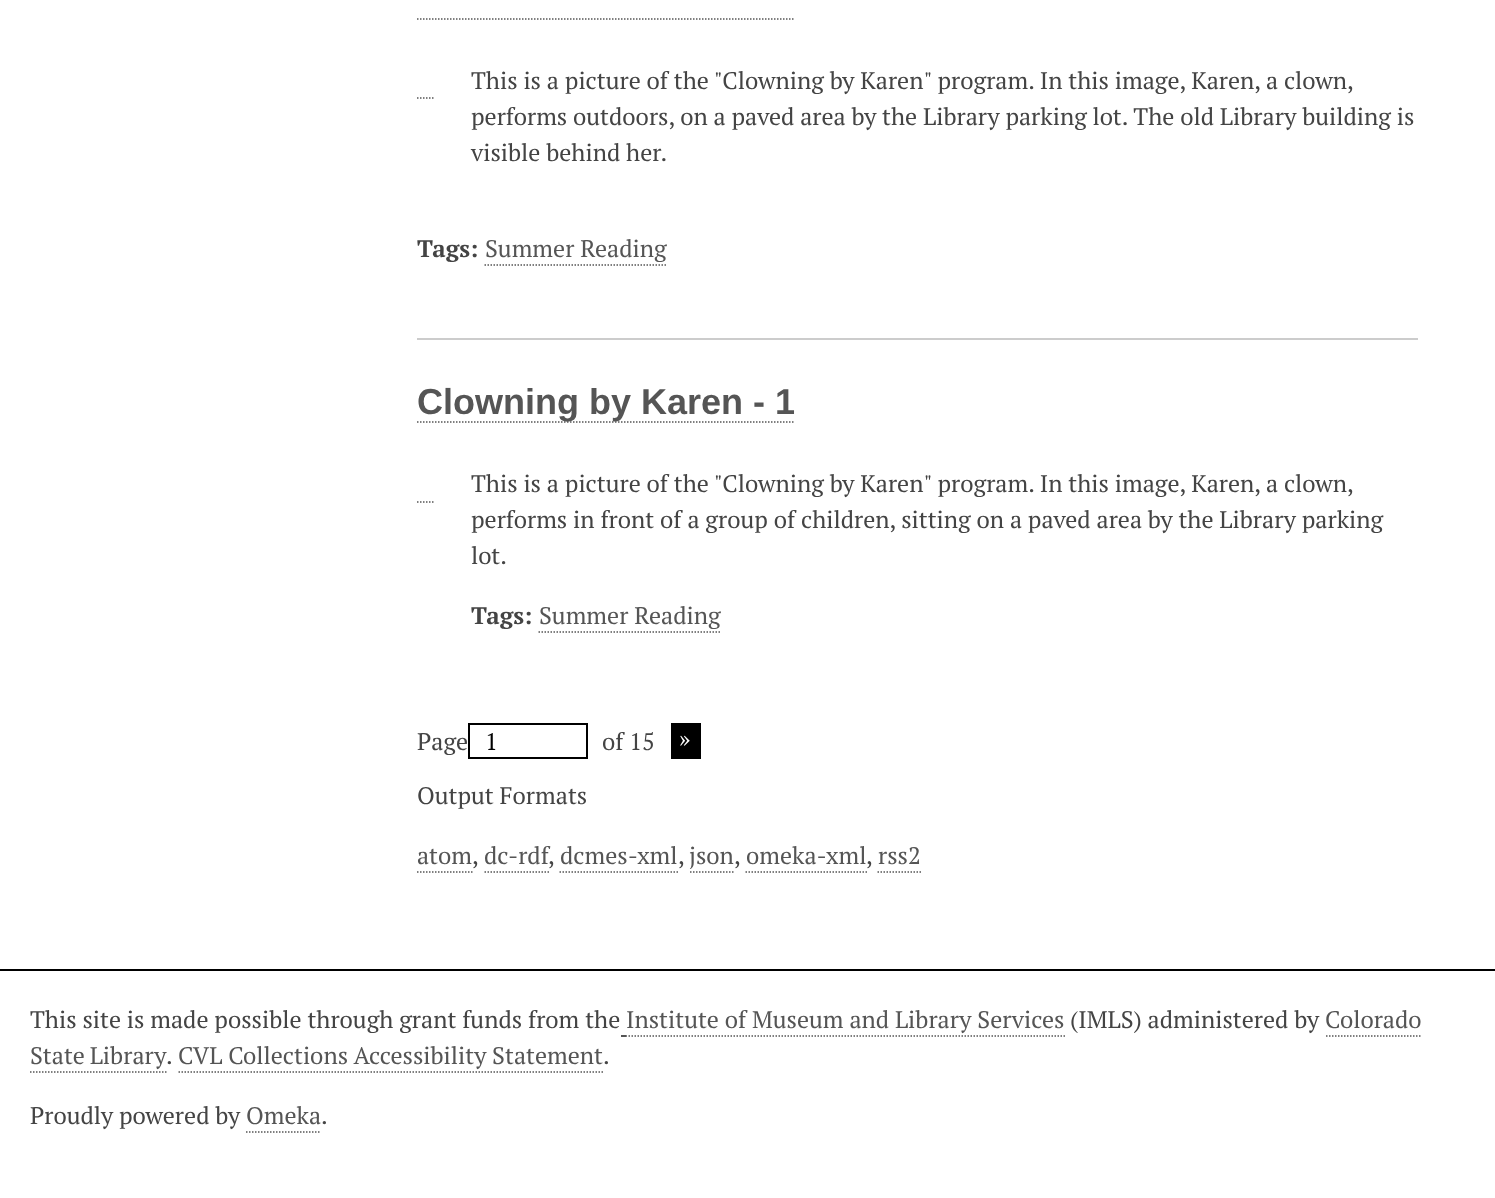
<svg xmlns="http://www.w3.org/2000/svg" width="1495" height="1198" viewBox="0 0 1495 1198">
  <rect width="100%" height="100%" fill="#ffffff"/>
  <path d="M417 19H795" fill="none" stroke="#555555" stroke-width="1.5" stroke-dasharray="1.5 1.5"/>
  <path d="M417 98H435" fill="none" stroke="#555555" stroke-width="1.5" stroke-dasharray="1.5 1.5"/>
  <text x="471" y="89" font-family="PT Serif" font-size="24" fill="#444444">This is a picture of the "Clowning by Karen" program. In this image, Karen, a clown,</text>
  <text x="471" y="125" font-family="PT Serif" font-size="24" fill="#444444">performs outdoors, on a paved area by the Library parking lot. The old Library building is</text>
  <text x="471" y="161" font-family="PT Serif" font-size="24" fill="#444444">visible behind her.</text>
  <text x="417" y="257" font-family="PT Serif" font-size="24" font-weight="bold" fill="#444444">Tags:</text>
  <text x="485" y="257" font-family="PT Serif" font-size="24" fill="#555555">Summer Reading</text>
  <path d="M484.5 265H666" fill="none" stroke="#555555" stroke-width="1.5" stroke-dasharray="1.5 1.5"/>
  <rect x="417" y="338" width="1001" height="2" fill="#cccccc"/>
  <path d="M417 422H795" fill="none" stroke="#555555" stroke-width="1.5" stroke-dasharray="1.5 1.5"/>
  <text x="417" y="414" font-family="Liberation Sans" font-size="36" font-weight="bold" fill="#555555">Clowning by Karen - 1</text>
  <path d="M417 502H435" fill="none" stroke="#555555" stroke-width="1.5" stroke-dasharray="1.5 1.5"/>
  <text x="471" y="492" font-family="PT Serif" font-size="24" fill="#444444">This is a picture of the "Clowning by Karen" program. In this image, Karen, a clown,</text>
  <text x="471" y="528" font-family="PT Serif" font-size="24" fill="#444444">performs in front of a group of children, sitting on a paved area by the Library parking</text>
  <text x="471" y="564" font-family="PT Serif" font-size="24" fill="#444444">lot.</text>
  <text x="471" y="624" font-family="PT Serif" font-size="24" font-weight="bold" fill="#444444">Tags:</text>
  <text x="539" y="624" font-family="PT Serif" font-size="24" fill="#555555">Summer Reading</text>
  <path d="M538.5 632H720" fill="none" stroke="#555555" stroke-width="1.5" stroke-dasharray="1.5 1.5"/>
  <text x="417" y="750" font-family="PT Serif" font-size="24" fill="#444444">Page</text>
  <rect x="469" y="724" width="118" height="34" fill="none" stroke="#000000" stroke-width="2"/>
  <text x="485" y="750" font-family="PT Serif" font-size="24" fill="#000000">1</text>
  <text x="602" y="750" font-family="PT Serif" font-size="24" fill="#444444">of 15</text>
  <rect x="671" y="723" width="30" height="36" fill="#000000"/>
  <text x="679" y="747" font-family="PT Serif" font-size="24" fill="#ffffff">»</text>
  <text x="417" y="804" font-family="PT Serif" font-size="24" fill="#444444">Output Formats</text>
  <text x="417" y="864" font-family="PT Serif" font-size="24" fill="#555555">atom</text>
  <path d="M417 872H472.5" fill="none" stroke="#555555" stroke-width="1.5" stroke-dasharray="1.5 1.5"/>
  <text x="472" y="864" font-family="PT Serif" font-size="24" fill="#444444">,</text>
  <text x="484" y="864" font-family="PT Serif" font-size="24" fill="#555555">dc-rdf</text>
  <path d="M484.5 872H549" fill="none" stroke="#555555" stroke-width="1.5" stroke-dasharray="1.5 1.5"/>
  <text x="548" y="864" font-family="PT Serif" font-size="24" fill="#444444">,</text>
  <text x="560" y="864" font-family="PT Serif" font-size="24" fill="#555555">dcmes-xml</text>
  <path d="M559.5 872H678" fill="none" stroke="#555555" stroke-width="1.5" stroke-dasharray="1.5 1.5"/>
  <text x="678" y="864" font-family="PT Serif" font-size="24" fill="#444444">,</text>
  <text x="689" y="864" font-family="PT Serif" font-size="24" fill="#555555">json</text>
  <path d="M690 872H733.5" fill="none" stroke="#555555" stroke-width="1.5" stroke-dasharray="1.5 1.5"/>
  <text x="734" y="864" font-family="PT Serif" font-size="24" fill="#444444">,</text>
  <text x="746" y="864" font-family="PT Serif" font-size="24" fill="#555555">omeka-xml</text>
  <path d="M745.5 872H867" fill="none" stroke="#555555" stroke-width="1.5" stroke-dasharray="1.5 1.5"/>
  <text x="866" y="864" font-family="PT Serif" font-size="24" fill="#444444">,</text>
  <text x="878" y="864" font-family="PT Serif" font-size="24" fill="#555555">rss2</text>
  <path d="M877.5 872H921" fill="none" stroke="#555555" stroke-width="1.5" stroke-dasharray="1.5 1.5"/>
  <rect x="0" y="969" width="1495" height="2" fill="#000000"/>
  <text x="30" y="1028" font-family="PT Serif" font-size="24" fill="#444444">This site is made possible through grant funds from the</text>
  <text x="626" y="1028" font-family="PT Serif" font-size="24" fill="#555555">Institute of Museum and Library Services</text>
  <rect x="621" y="1035" width="5" height="2" fill="#555555"/>
  <path d="M625.5 1036H1065" fill="none" stroke="#555555" stroke-width="1.5" stroke-dasharray="1.5 1.5"/>
  <text x="1070" y="1028" font-family="PT Serif" font-size="24" fill="#444444">(IMLS) administered by</text>
  <text x="1325" y="1028" font-family="PT Serif" font-size="24" fill="#555555">Colorado</text>
  <path d="M1326 1036H1422" fill="none" stroke="#555555" stroke-width="1.5" stroke-dasharray="1.5 1.5"/>
  <text x="30" y="1064" word-spacing="-1" font-family="PT Serif" font-size="24" fill="#555555">State Library</text>
  <path d="M30 1072H166.5" fill="none" stroke="#555555" stroke-width="1.5" stroke-dasharray="1.5 1.5"/>
  <text x="166" y="1064" font-family="PT Serif" font-size="24" fill="#444444">.</text>
  <text x="178" y="1064" font-family="PT Serif" font-size="24" fill="#555555">CVL Collections Accessibility Statement</text>
  <text x="603" y="1064" font-family="PT Serif" font-size="24" fill="#444444">.</text>
  <path d="M178.5 1072H603" fill="none" stroke="#555555" stroke-width="1.5" stroke-dasharray="1.5 1.5"/>
  <text x="30" y="1124" font-family="PT Serif" font-size="24" fill="#444444">Proudly powered by</text>
  <text x="246" y="1124" font-family="PT Serif" font-size="24" fill="#555555">Omeka</text>
  <path d="M246 1132H321" fill="none" stroke="#555555" stroke-width="1.5" stroke-dasharray="1.5 1.5"/>
  <text x="321" y="1124" font-family="PT Serif" font-size="24" fill="#444444">.</text>
</svg>
